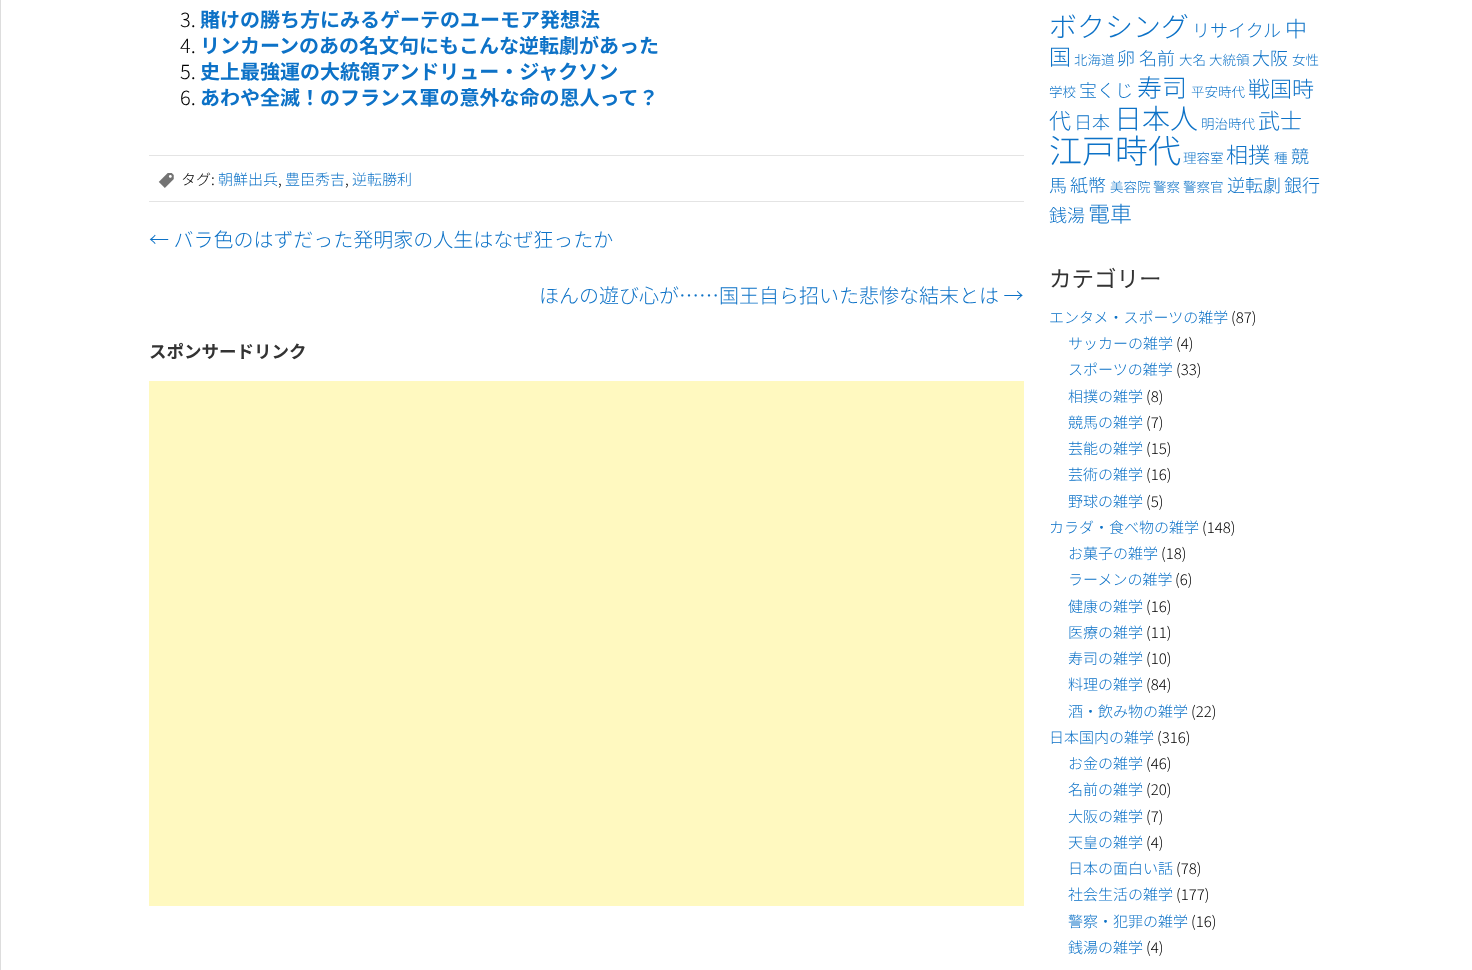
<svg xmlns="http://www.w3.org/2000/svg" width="1472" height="970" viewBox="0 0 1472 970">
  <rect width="100%" height="100%" fill="#ffffff"/>
  <rect x="0.5" y="-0.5" width="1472" height="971" fill="none" stroke="#dddddd"/>
  <text x="180" y="27" font-family="Noto Sans JP" font-size="20" font-weight="300" fill="#000000">3.</text>
  <text x="200" y="27" font-family="Noto Sans JP" font-size="20" font-weight="bold" fill="#0d72c7">賭けの勝ち方にみるゲーテのユーモア発想法</text>
  <text x="180" y="53" font-family="Noto Sans JP" font-size="20" font-weight="300" fill="#000000">4.</text>
  <text x="200" y="53" font-family="Noto Sans JP" font-size="20" font-weight="bold" fill="#0d72c7">リンカーンのあの名文句にもこんな逆転劇があった</text>
  <text x="180" y="79" font-family="Noto Sans JP" font-size="20" font-weight="300" fill="#000000">5.</text>
  <text x="200" y="79" font-family="Noto Sans JP" font-size="20" font-weight="bold" fill="#0d72c7">史上最強運の大統領アンドリュー・ジャクソン</text>
  <text x="180" y="105" font-family="Noto Sans JP" font-size="20" font-weight="300" fill="#000000">6.</text>
  <text x="200" y="105" font-family="Noto Sans JP" font-size="20" font-weight="bold" fill="#0d72c7">あわや全滅！のフランス軍の意外な命の恩人って？</text>
  <rect x="149" y="155" width="875" height="1" fill="#e4e4e4"/>
  <rect x="149" y="201" width="875" height="1" fill="#e4e4e4"/>
  <image x="158" y="173" width="16" height="15" href="img1.png"/>
  <text x="181" y="185" font-family="Noto Sans JP" font-size="15" font-weight="300" fill="#000000">タグ:</text>
  <text x="218" y="185" font-family="Noto Sans JP" font-size="15" font-weight="300" fill="#0d72c7">朝鮮出兵</text>
  <text x="278" y="185" font-family="Noto Sans JP" font-size="15" font-weight="300" fill="#000000">,</text>
  <text x="285" y="185" font-family="Noto Sans JP" font-size="15" font-weight="300" fill="#0d72c7">豊臣秀吉</text>
  <text x="345" y="185" font-family="Noto Sans JP" font-size="15" font-weight="300" fill="#000000">,</text>
  <text x="352" y="185" font-family="Noto Sans JP" font-size="15" font-weight="300" fill="#0d72c7">逆転勝利</text>
  <text x="149" y="247" font-family="Noto Sans JP" font-size="20" font-weight="300" fill="#0d72c7">← バラ色のはずだった発明家の人生はなぜ狂ったか</text>
  <text x="539" y="303" font-family="Noto Sans JP" font-size="20" font-weight="300" fill="#0d72c7">ほんの遊び心が……国王自ら招いた悲惨な結末とは →</text>
  <text x="149" y="358" font-family="Noto Sans JP" font-size="17.5" font-weight="bold" fill="#333333">スポンサードリンク</text>
  <rect x="149" y="381" width="875" height="525" fill="#fff9c0"/>
  <text x="1049" y="37" font-family="Noto Sans JP" font-size="28" font-weight="300" fill="#0d72c7">ボクシング</text>
  <text x="1192" y="37" font-family="Noto Sans JP" font-size="18" font-weight="300" fill="#0d72c7">リサイクル</text>
  <text x="1285" y="37" font-family="Noto Sans JP" font-size="22" font-weight="300" fill="#0d72c7">中</text>
  <text x="1049" y="65" font-family="Noto Sans JP" font-size="22" font-weight="300" fill="#0d72c7">国</text>
  <text x="1074" y="65" font-family="Noto Sans JP" font-size="13.5" font-weight="300" fill="#0d72c7">北海道</text>
  <text x="1117" y="65" font-family="Noto Sans JP" font-size="18" font-weight="300" fill="#0d72c7">卵</text>
  <text x="1139" y="65" font-family="Noto Sans JP" font-size="18" font-weight="300" fill="#0d72c7">名前</text>
  <text x="1179" y="65" font-family="Noto Sans JP" font-size="13.5" font-weight="300" fill="#0d72c7">大名</text>
  <text x="1209" y="65" font-family="Noto Sans JP" font-size="13.5" font-weight="300" fill="#0d72c7">大統領</text>
  <text x="1252" y="65" font-family="Noto Sans JP" font-size="18" font-weight="300" fill="#0d72c7">大阪</text>
  <text x="1292" y="65" font-family="Noto Sans JP" font-size="13.5" font-weight="300" fill="#0d72c7">女性</text>
  <text x="1049" y="97" font-family="Noto Sans JP" font-size="13.5" font-weight="300" fill="#0d72c7">学校</text>
  <text x="1079" y="97" font-family="Noto Sans JP" font-size="18" font-weight="300" fill="#0d72c7">宝くじ</text>
  <text x="1137" y="97" font-family="Noto Sans JP" font-size="25" font-weight="300" fill="#0d72c7">寿司</text>
  <text x="1191" y="97" font-family="Noto Sans JP" font-size="13.5" font-weight="300" fill="#0d72c7">平安時代</text>
  <text x="1248" y="97" font-family="Noto Sans JP" font-size="22" font-weight="300" fill="#0d72c7">戦国時</text>
  <text x="1049" y="129" font-family="Noto Sans JP" font-size="22" font-weight="300" fill="#0d72c7">代</text>
  <text x="1074" y="129" font-family="Noto Sans JP" font-size="18" font-weight="300" fill="#0d72c7">日本</text>
  <text x="1114" y="129" font-family="Noto Sans JP" font-size="28" font-weight="300" fill="#0d72c7">日本人</text>
  <text x="1201" y="129" font-family="Noto Sans JP" font-size="13.5" font-weight="300" fill="#0d72c7">明治時代</text>
  <text x="1258" y="129" font-family="Noto Sans JP" font-size="22" font-weight="300" fill="#0d72c7">武士</text>
  <text x="1049" y="163" font-family="Noto Sans JP" font-size="33" font-weight="300" fill="#0d72c7">江戸時代</text>
  <text x="1183" y="163" font-family="Noto Sans JP" font-size="13.5" font-weight="300" fill="#0d72c7">理容室</text>
  <text x="1226" y="163" font-family="Noto Sans JP" font-size="22" font-weight="300" fill="#0d72c7">相撲</text>
  <text x="1274" y="163" font-family="Noto Sans JP" font-size="13.5" font-weight="300" fill="#0d72c7">種</text>
  <text x="1291" y="163" font-family="Noto Sans JP" font-size="18" font-weight="300" fill="#0d72c7">競</text>
  <text x="1049" y="192" font-family="Noto Sans JP" font-size="18" font-weight="300" fill="#0d72c7">馬</text>
  <text x="1070" y="192" font-family="Noto Sans JP" font-size="18" font-weight="300" fill="#0d72c7">紙幣</text>
  <text x="1110" y="192" font-family="Noto Sans JP" font-size="13.5" font-weight="300" fill="#0d72c7">美容院</text>
  <text x="1153" y="192" font-family="Noto Sans JP" font-size="13.5" font-weight="300" fill="#0d72c7">警察</text>
  <text x="1183" y="192" font-family="Noto Sans JP" font-size="13.5" font-weight="300" fill="#0d72c7">警察官</text>
  <text x="1227" y="192" font-family="Noto Sans JP" font-size="18" font-weight="300" fill="#0d72c7">逆転劇</text>
  <text x="1284" y="192" font-family="Noto Sans JP" font-size="18" font-weight="300" fill="#0d72c7">銀行</text>
  <text x="1049" y="222" font-family="Noto Sans JP" font-size="18" font-weight="300" fill="#0d72c7">銭湯</text>
  <text x="1088" y="222" font-family="Noto Sans JP" font-size="22" font-weight="300" fill="#0d72c7">電車</text>
  <text x="1049" y="287" font-family="Noto Sans JP" font-size="22.5" fill="#333333">カテゴリー</text>
  <text x="1049" y="323" font-family="Noto Sans JP" font-size="15" font-weight="300" fill="#0d72c7">エンタメ・スポーツの雑学</text>
  <text x="1231" y="323" font-family="Noto Sans JP" font-size="15" font-weight="300" fill="#000000">(87)</text>
  <text x="1068" y="349" font-family="Noto Sans JP" font-size="15" font-weight="300" fill="#0d72c7">サッカーの雑学</text>
  <text x="1176" y="349" font-family="Noto Sans JP" font-size="15" font-weight="300" fill="#000000">(4)</text>
  <text x="1068" y="375" font-family="Noto Sans JP" font-size="15" font-weight="300" fill="#0d72c7">スポーツの雑学</text>
  <text x="1176" y="375" font-family="Noto Sans JP" font-size="15" font-weight="300" fill="#000000">(33)</text>
  <text x="1068" y="402" font-family="Noto Sans JP" font-size="15" font-weight="300" fill="#0d72c7">相撲の雑学</text>
  <text x="1146" y="402" font-family="Noto Sans JP" font-size="15" font-weight="300" fill="#000000">(8)</text>
  <text x="1068" y="428" font-family="Noto Sans JP" font-size="15" font-weight="300" fill="#0d72c7">競馬の雑学</text>
  <text x="1146" y="428" font-family="Noto Sans JP" font-size="15" font-weight="300" fill="#000000">(7)</text>
  <text x="1068" y="454" font-family="Noto Sans JP" font-size="15" font-weight="300" fill="#0d72c7">芸能の雑学</text>
  <text x="1146" y="454" font-family="Noto Sans JP" font-size="15" font-weight="300" fill="#000000">(15)</text>
  <text x="1068" y="480" font-family="Noto Sans JP" font-size="15" font-weight="300" fill="#0d72c7">芸術の雑学</text>
  <text x="1146" y="480" font-family="Noto Sans JP" font-size="15" font-weight="300" fill="#000000">(16)</text>
  <text x="1068" y="507" font-family="Noto Sans JP" font-size="15" font-weight="300" fill="#0d72c7">野球の雑学</text>
  <text x="1146" y="507" font-family="Noto Sans JP" font-size="15" font-weight="300" fill="#000000">(5)</text>
  <text x="1049" y="533" font-family="Noto Sans JP" font-size="15" font-weight="300" fill="#0d72c7">カラダ・食べ物の雑学</text>
  <text x="1202" y="533" font-family="Noto Sans JP" font-size="15" font-weight="300" fill="#000000">(148)</text>
  <text x="1068" y="559" font-family="Noto Sans JP" font-size="15" font-weight="300" fill="#0d72c7">お菓子の雑学</text>
  <text x="1161" y="559" font-family="Noto Sans JP" font-size="15" font-weight="300" fill="#000000">(18)</text>
  <text x="1068" y="585" font-family="Noto Sans JP" font-size="15" font-weight="300" fill="#0d72c7">ラーメンの雑学</text>
  <text x="1175" y="585" font-family="Noto Sans JP" font-size="15" font-weight="300" fill="#000000">(6)</text>
  <text x="1068" y="612" font-family="Noto Sans JP" font-size="15" font-weight="300" fill="#0d72c7">健康の雑学</text>
  <text x="1146" y="612" font-family="Noto Sans JP" font-size="15" font-weight="300" fill="#000000">(16)</text>
  <text x="1068" y="638" font-family="Noto Sans JP" font-size="15" font-weight="300" fill="#0d72c7">医療の雑学</text>
  <text x="1146" y="638" font-family="Noto Sans JP" font-size="15" font-weight="300" fill="#000000">(11)</text>
  <text x="1068" y="664" font-family="Noto Sans JP" font-size="15" font-weight="300" fill="#0d72c7">寿司の雑学</text>
  <text x="1146" y="664" font-family="Noto Sans JP" font-size="15" font-weight="300" fill="#000000">(10)</text>
  <text x="1068" y="690" font-family="Noto Sans JP" font-size="15" font-weight="300" fill="#0d72c7">料理の雑学</text>
  <text x="1146" y="690" font-family="Noto Sans JP" font-size="15" font-weight="300" fill="#000000">(84)</text>
  <text x="1068" y="717" font-family="Noto Sans JP" font-size="15" font-weight="300" fill="#0d72c7">酒・飲み物の雑学</text>
  <text x="1191" y="717" font-family="Noto Sans JP" font-size="15" font-weight="300" fill="#000000">(22)</text>
  <text x="1049" y="743" font-family="Noto Sans JP" font-size="15" font-weight="300" fill="#0d72c7">日本国内の雑学</text>
  <text x="1157" y="743" font-family="Noto Sans JP" font-size="15" font-weight="300" fill="#000000">(316)</text>
  <text x="1068" y="769" font-family="Noto Sans JP" font-size="15" font-weight="300" fill="#0d72c7">お金の雑学</text>
  <text x="1146" y="769" font-family="Noto Sans JP" font-size="15" font-weight="300" fill="#000000">(46)</text>
  <text x="1068" y="795" font-family="Noto Sans JP" font-size="15" font-weight="300" fill="#0d72c7">名前の雑学</text>
  <text x="1146" y="795" font-family="Noto Sans JP" font-size="15" font-weight="300" fill="#000000">(20)</text>
  <text x="1068" y="822" font-family="Noto Sans JP" font-size="15" font-weight="300" fill="#0d72c7">大阪の雑学</text>
  <text x="1146" y="822" font-family="Noto Sans JP" font-size="15" font-weight="300" fill="#000000">(7)</text>
  <text x="1068" y="848" font-family="Noto Sans JP" font-size="15" font-weight="300" fill="#0d72c7">天皇の雑学</text>
  <text x="1146" y="848" font-family="Noto Sans JP" font-size="15" font-weight="300" fill="#000000">(4)</text>
  <text x="1068" y="874" font-family="Noto Sans JP" font-size="15" font-weight="300" fill="#0d72c7">日本の面白い話</text>
  <text x="1176" y="874" font-family="Noto Sans JP" font-size="15" font-weight="300" fill="#000000">(78)</text>
  <text x="1068" y="900" font-family="Noto Sans JP" font-size="15" font-weight="300" fill="#0d72c7">社会生活の雑学</text>
  <text x="1176" y="900" font-family="Noto Sans JP" font-size="15" font-weight="300" fill="#000000">(177)</text>
  <text x="1068" y="927" font-family="Noto Sans JP" font-size="15" font-weight="300" fill="#0d72c7">警察・犯罪の雑学</text>
  <text x="1191" y="927" font-family="Noto Sans JP" font-size="15" font-weight="300" fill="#000000">(16)</text>
  <text x="1068" y="953" font-family="Noto Sans JP" font-size="15" font-weight="300" fill="#0d72c7">銭湯の雑学</text>
  <text x="1146" y="953" font-family="Noto Sans JP" font-size="15" font-weight="300" fill="#000000">(4)</text>
</svg>
